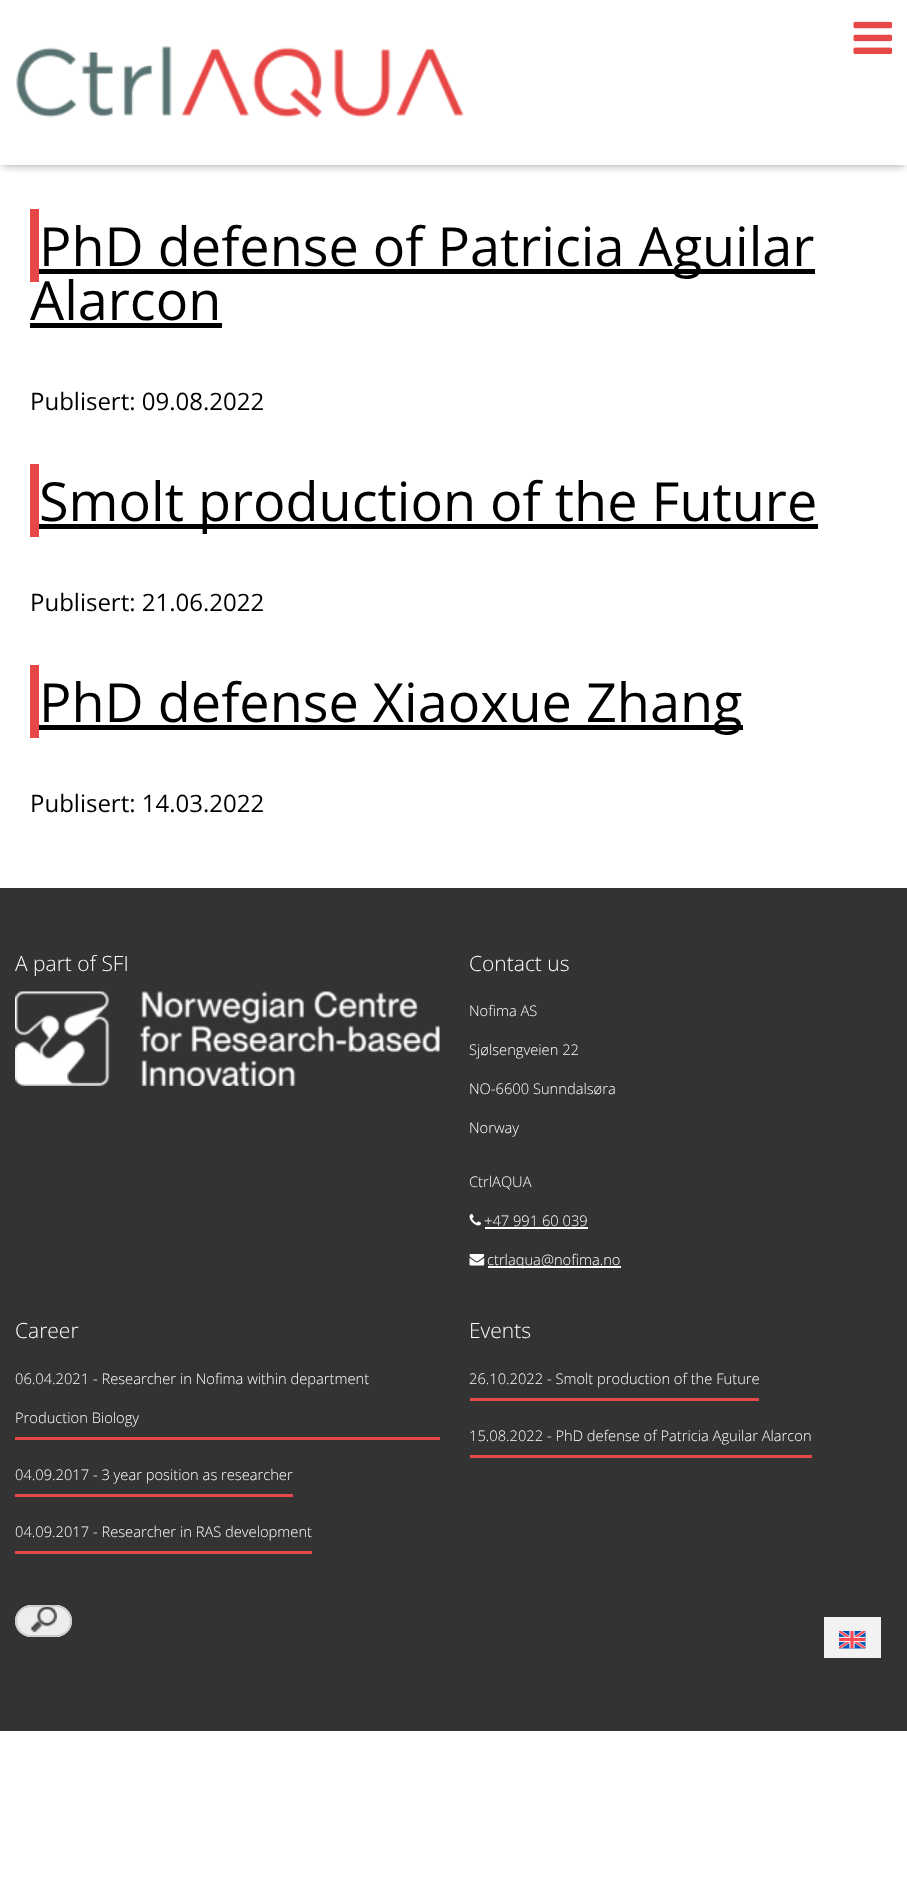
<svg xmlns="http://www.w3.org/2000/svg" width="907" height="1886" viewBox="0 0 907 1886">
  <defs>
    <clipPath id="clip1"><rect x="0" y="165" width="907" height="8"/></clipPath>
    <filter id="blur1" x="-50%" y="-200%" width="200%" height="500%"><feGaussianBlur stdDeviation="5"/></filter>
  </defs>
  <rect width="100%" height="100%" fill="#ffffff"/>
  <g clip-path="url(#clip1)">
    <rect x="3" y="6" width="902" height="159" fill="#000000" fill-opacity="0.4" filter="url(#blur1)"/>
  </g>
  <image x="853" y="21" width="40" height="33" href="img1.png"/>
  <image x="16" y="46" width="448" height="72" href="img2.png"/>
  <rect x="39" y="269" width="776" height="5" fill="#000000"/>
  <text x="39" y="266" font-family="Open Sans" font-size="54" fill="#000000">PhD defense of Patricia Aguilar</text>
  <rect x="30" y="209" width="9" height="73" fill="#e74746"/>
  <text x="30" y="320" font-family="Open Sans" font-size="54" fill="#000000">Alarcon</text>
  <rect x="30" y="323" width="192" height="5" fill="#000000"/>
  <text x="30" y="410" font-family="Open Sans" font-size="24" fill="#000000">Publisert: 09.08.2022</text>
  <rect x="39" y="524" width="779" height="5" fill="#000000"/>
  <text x="39" y="521" font-family="Open Sans" font-size="54" fill="#000000">Smolt production of the Future</text>
  <rect x="30" y="464" width="9" height="73" fill="#e74746"/>
  <text x="30" y="611" font-family="Open Sans" font-size="24" fill="#000000">Publisert: 21.06.2022</text>
  <rect x="39" y="725" width="704" height="5" fill="#000000"/>
  <text x="39" y="722" font-family="Open Sans" font-size="54" fill="#000000">PhD defense Xiaoxue Zhang</text>
  <rect x="30" y="665" width="9" height="73" fill="#e74746"/>
  <text x="30" y="812" font-family="Open Sans" font-size="24" fill="#000000">Publisert: 14.03.2022</text>
  <rect x="0" y="888" width="907" height="843" fill="#333333"/>
  <text x="15" y="971" font-family="Open Sans" font-size="21" font-weight="300" fill="#ffffff">A part of SFI</text>
  <image x="15" y="991" width="425" height="95" href="img3.png"/>
  <text x="469" y="971" font-family="Open Sans" font-size="21" font-weight="300" fill="#ffffff">Contact us</text>
  <text x="469" y="1016" font-family="Open Sans" font-size="14.7" font-weight="300" fill="#ffffff">Nofima AS</text>
  <text x="469" y="1055" font-family="Open Sans" font-size="14.7" font-weight="300" fill="#ffffff">Sjølsengveien 22</text>
  <text x="469" y="1094" font-family="Open Sans" font-size="14.7" font-weight="300" fill="#ffffff">NO-6600 Sunndalsøra</text>
  <text x="469" y="1133" font-family="Open Sans" font-size="14.7" font-weight="300" fill="#ffffff">Norway</text>
  <text x="469" y="1187" font-family="Open Sans" font-size="14.7" font-weight="300" fill="#ffffff">CtrlAQUA</text>
  <image x="469" y="1214" width="12" height="12" href="img4.png"/>
  <text x="484" y="1226" font-family="Open Sans" font-size="14.7" font-weight="300" fill="#ffffff">+47 991 60 039</text>
  <rect x="485" y="1227" width="103" height="2" fill="#ffffff"/>
  <image x="469" y="1254" width="16" height="12" href="img5.png"/>
  <rect x="488" y="1266" width="133" height="2" fill="#ffffff"/>
  <text x="487" y="1265" font-family="Open Sans" font-size="14.7" font-weight="300" fill="#ffffff">ctrlaqua@nofima.no</text>
  <text x="15" y="1338" font-family="Open Sans" font-size="21" font-weight="300" fill="#ffffff">Career</text>
  <rect x="15" y="1437" width="425" height="3" fill="#e74746"/>
  <text x="15" y="1384" font-family="Open Sans" font-size="14.7" font-weight="300" fill="#ffffff">06.04.2021 - Researcher in Nofima within department</text>
  <text x="15" y="1423" font-family="Open Sans" font-size="14.7" font-weight="300" fill="#ffffff">Production Biology</text>
  <rect x="15" y="1494" width="278" height="3" fill="#e74746"/>
  <text x="15" y="1480" font-family="Open Sans" font-size="14.7" font-weight="300" fill="#ffffff">04.09.2017 - 3 year position as researcher</text>
  <rect x="15" y="1551" width="297" height="3" fill="#e74746"/>
  <text x="15" y="1537" font-family="Open Sans" font-size="14.7" font-weight="300" fill="#ffffff">04.09.2017 - Researcher in RAS development</text>
  <text x="469" y="1338" font-family="Open Sans" font-size="21" font-weight="300" fill="#ffffff">Events</text>
  <rect x="470" y="1398" width="289" height="3" fill="#e74746"/>
  <text x="469" y="1384" font-family="Open Sans" font-size="14.7" font-weight="300" fill="#ffffff">26.10.2022 - Smolt production of the Future</text>
  <rect x="470" y="1455" width="342" height="3" fill="#e74746"/>
  <text x="469" y="1441" font-family="Open Sans" font-size="14.7" font-weight="300" fill="#ffffff">15.08.2022 - PhD defense of Patricia Aguilar Alarcon</text>
  <rect x="15" y="1605" width="57" height="32" rx="16" fill="#ededed"/>
  <image x="30" y="1607" width="27" height="26" href="img6.png"/>
  <rect x="16" y="1606" width="55" height="30" rx="15" fill="none" stroke="#cccccc" stroke-width="2"/>
  <rect x="824" y="1617" width="57" height="41" fill="#f2f2f2"/>
  <image x="839" y="1631" width="27" height="18" href="img7.png"/>
</svg>
